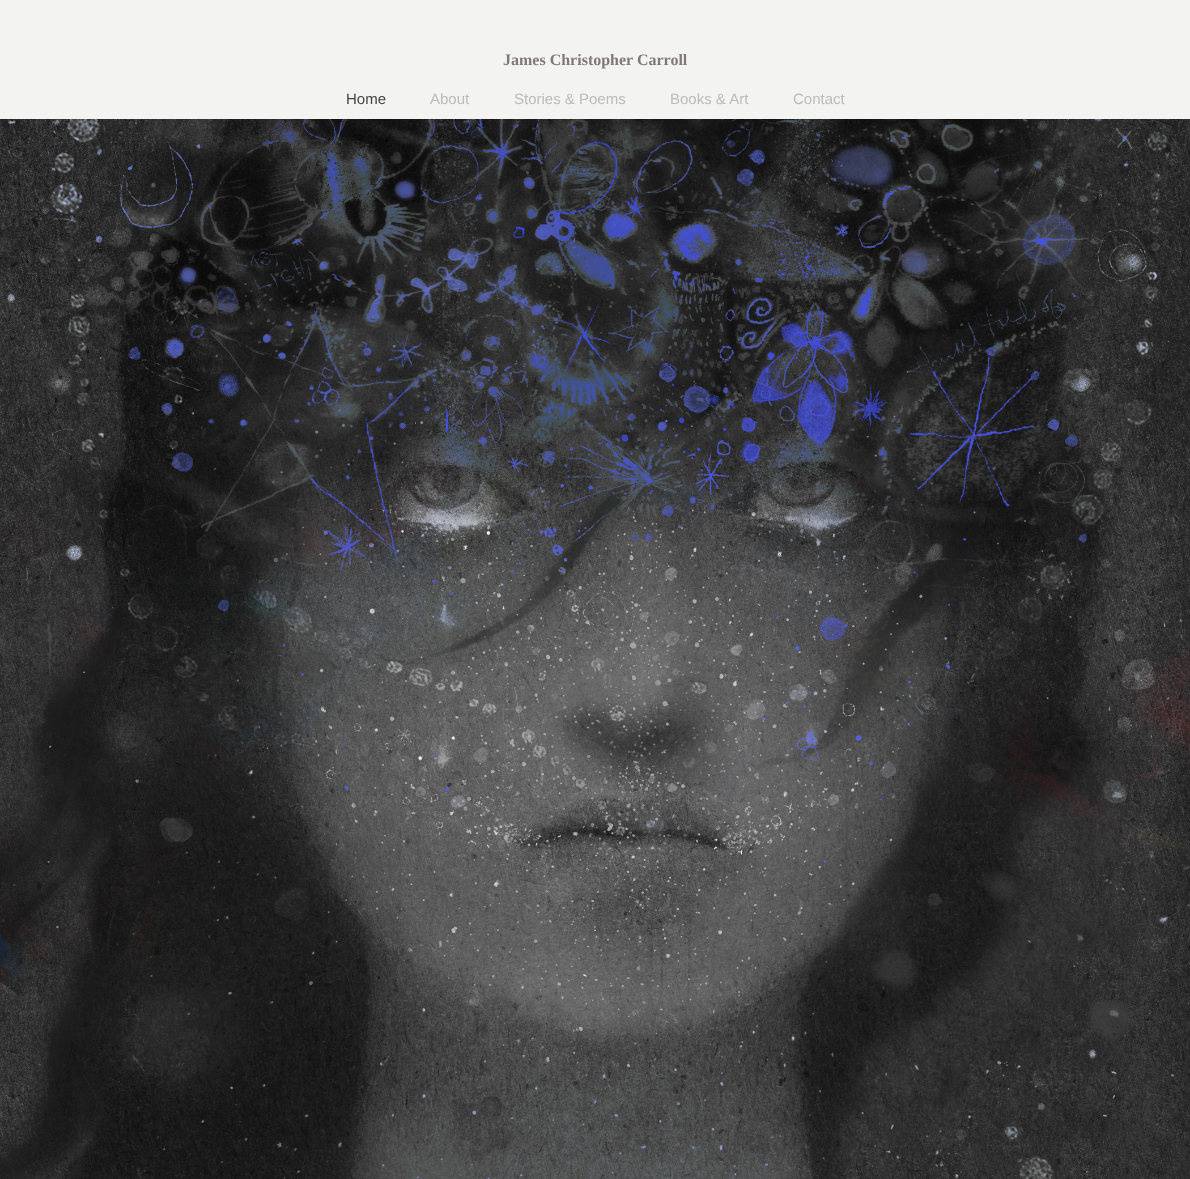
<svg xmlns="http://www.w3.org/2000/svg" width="1190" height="1179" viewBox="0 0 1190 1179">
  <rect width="100%" height="100%" fill="#ffffff"/>
  <image x="0" y="119" width="1190" height="1060" href="img1.png"/>
  <rect x="0" y="0" width="1190" height="119" fill="#f3f3f2"/>
  <text x="503" y="65" font-family="Liberation Serif" font-size="16" font-weight="bold" fill="#817878">James Christopher Carroll</text>
  <text x="346" y="104" font-family="Liberation Sans" font-size="15" fill="#444444">Home</text>
  <text x="430" y="104" font-family="Liberation Sans" font-size="15" fill="#bbbbbb">About</text>
  <text x="514" y="104" font-family="Liberation Sans" font-size="15" fill="#bbbbbb">Stories &amp; Poems</text>
  <text x="670" y="104" font-family="Liberation Sans" font-size="15" fill="#bbbbbb">Books &amp; Art</text>
  <text x="793" y="104" font-family="Liberation Sans" font-size="15" fill="#bbbbbb">Contact</text>
</svg>
